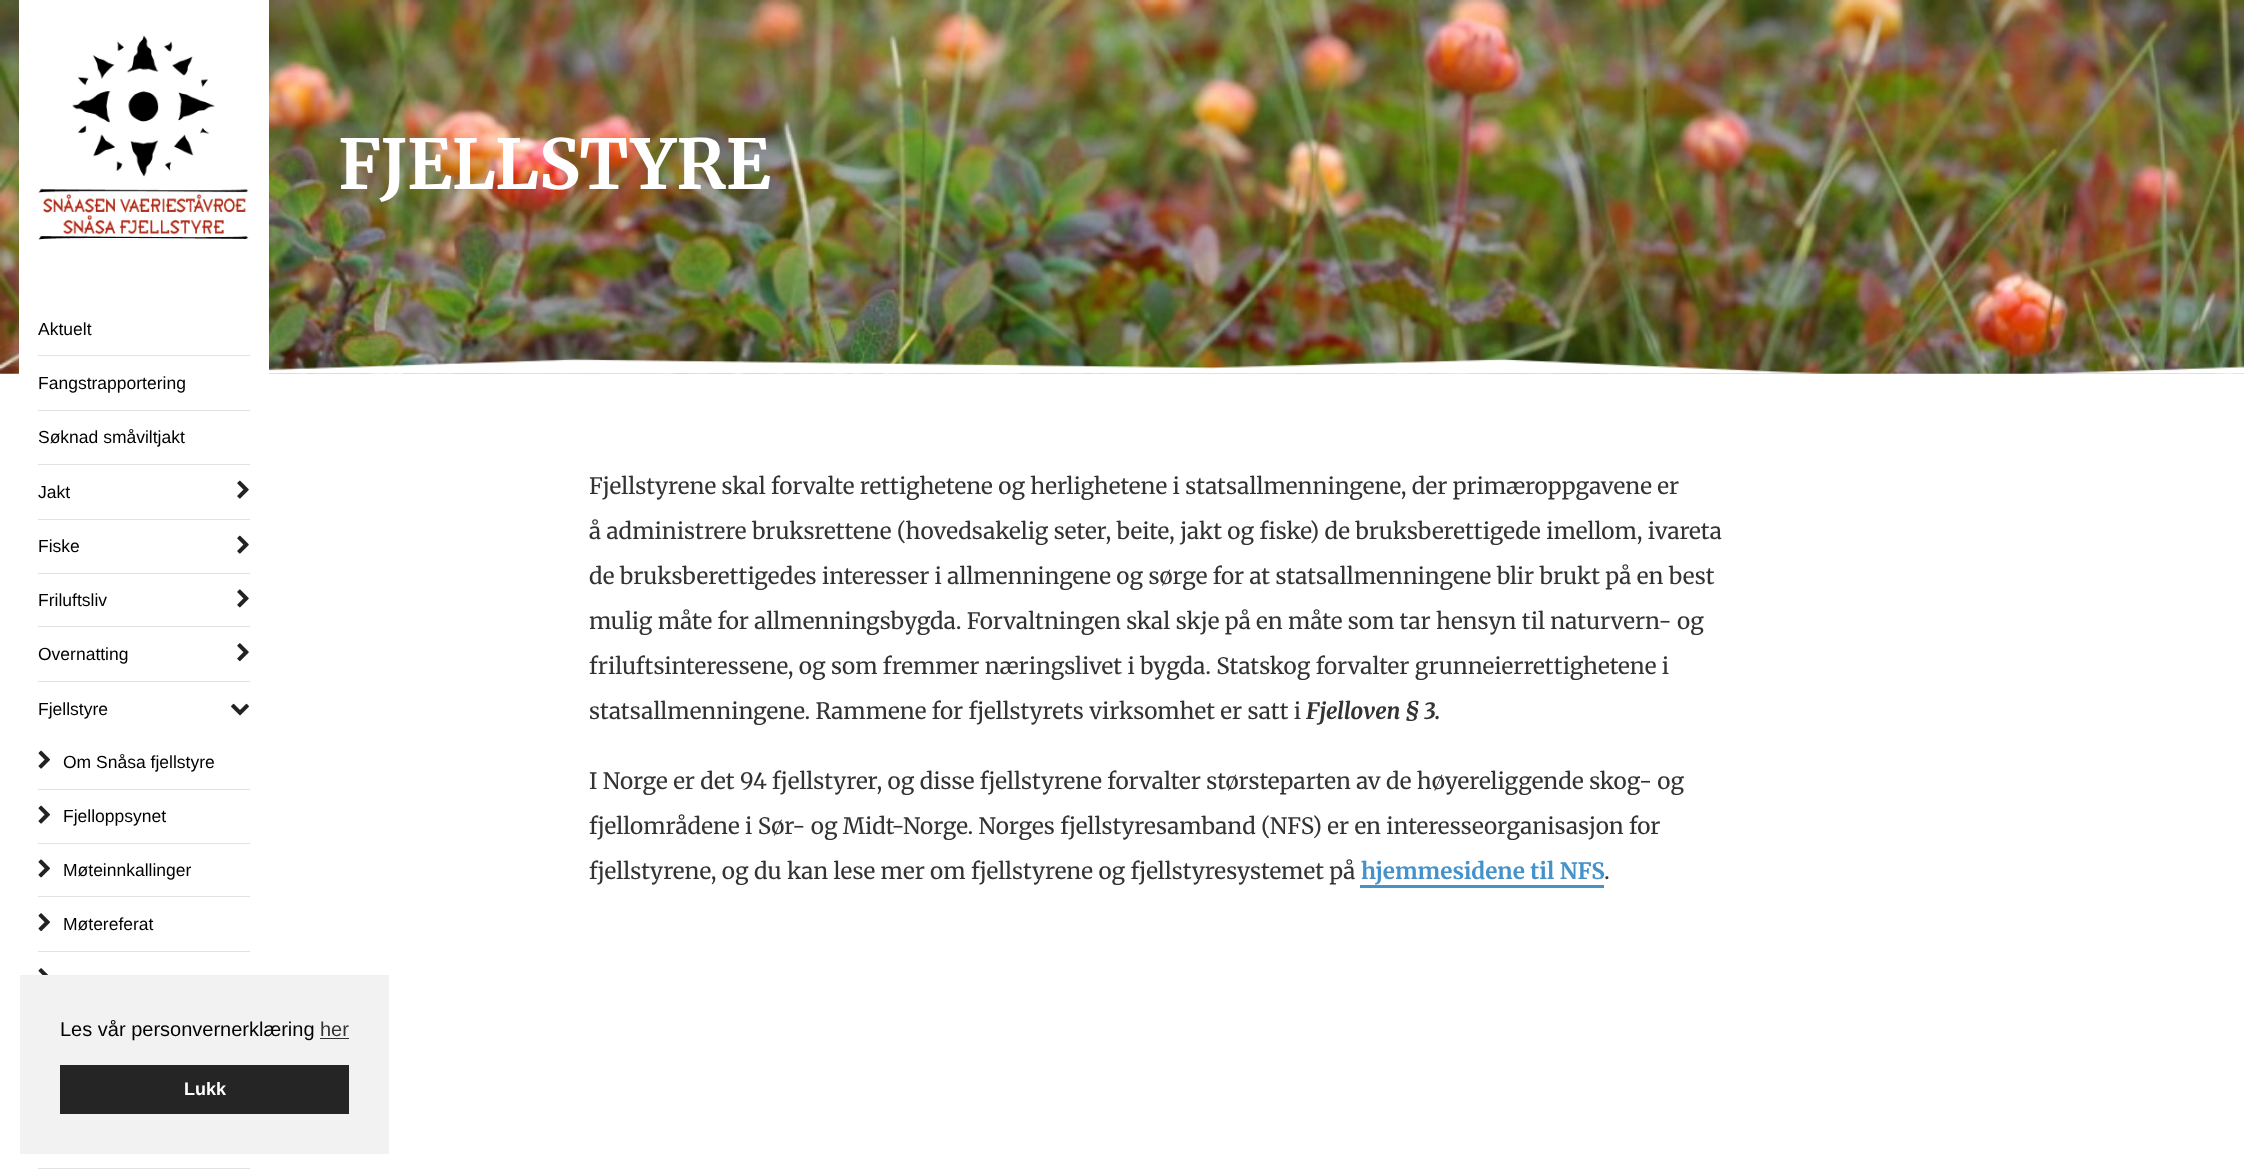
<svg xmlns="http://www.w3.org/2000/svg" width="2244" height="1173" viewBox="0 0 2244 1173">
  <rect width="100%" height="100%" fill="#ffffff"/>
  <image x="0" y="0" width="2244" height="374" href="img1.png"/>
  <text x="338" y="189" font-family="Merriweather" font-size="68.75" font-weight="bold" fill="#ffffff">FJELLSTYRE</text>
  <image x="269" y="358" width="1975" height="16" href="img2.png"/>
  <rect x="19" y="0" width="250" height="374" fill="#ffffff"/>
  <image x="38" y="35" width="211" height="205" href="img3.png"/>
  <rect x="38" y="355" width="212" height="1" fill="#e2e2e2"/>
  <text x="38" y="335" font-family="Liberation Sans" font-size="17.5" fill="#000000">Aktuelt</text>
  <rect x="38" y="410" width="212" height="1" fill="#e2e2e2"/>
  <text x="38" y="389" font-family="Liberation Sans" font-size="17.5" fill="#000000">Fangstrapportering</text>
  <rect x="38" y="464" width="212" height="1" fill="#e2e2e2"/>
  <text x="38" y="443" font-family="Liberation Sans" font-size="17.5" fill="#000000">Søknad småviltjakt</text>
  <rect x="38" y="519" width="212" height="1" fill="#e2e2e2"/>
  <text x="38" y="498" font-family="Liberation Sans" font-size="17.5" fill="#000000">Jakt</text>
  <image x="237" y="480" width="12" height="19" href="img4.png"/>
  <rect x="38" y="573" width="212" height="1" fill="#e2e2e2"/>
  <text x="38" y="552" font-family="Liberation Sans" font-size="17.5" fill="#000000">Fiske</text>
  <image x="237" y="535" width="12" height="19" href="img4.png"/>
  <rect x="38" y="626" width="212" height="1" fill="#e2e2e2"/>
  <text x="38" y="606" font-family="Liberation Sans" font-size="17.5" fill="#000000">Friluftsliv</text>
  <image x="237" y="589" width="12" height="19" href="img5.png"/>
  <rect x="38" y="681" width="212" height="1" fill="#e2e2e2"/>
  <text x="38" y="660" font-family="Liberation Sans" font-size="17.5" fill="#000000">Overnatting</text>
  <image x="237" y="643" width="12" height="19" href="img6.png"/>
  <text x="38" y="715" font-family="Liberation Sans" font-size="17.5" fill="#000000">Fjellstyre</text>
  <image x="231" y="703" width="18" height="13" href="img7.png"/>
  <rect x="38" y="789" width="212" height="1" fill="#e2e2e2"/>
  <image x="38" y="750" width="12" height="19" href="img8.png"/>
  <text x="63" y="768" font-family="Liberation Sans" font-size="17.5" fill="#000000">Om Snåsa fjellstyre</text>
  <rect x="38" y="843" width="212" height="1" fill="#e2e2e2"/>
  <image x="38" y="805" width="12" height="19" href="img8.png"/>
  <text x="63" y="822" font-family="Liberation Sans" font-size="17.5" fill="#000000">Fjelloppsynet</text>
  <rect x="38" y="896" width="212" height="1" fill="#e2e2e2"/>
  <image x="38" y="859" width="12" height="19" href="img9.png"/>
  <text x="63" y="876" font-family="Liberation Sans" font-size="17.5" fill="#000000">Møteinnkallinger</text>
  <rect x="38" y="951" width="212" height="1" fill="#e2e2e2"/>
  <image x="38" y="913" width="12" height="19" href="img10.png"/>
  <text x="63" y="930" font-family="Liberation Sans" font-size="17.5" fill="#000000">Møtereferat</text>
  <image x="38" y="968" width="11" height="7" href="img11.png"/>
  <rect x="38" y="1168" width="212" height="1" fill="#e2e2e2"/>
  <text x="589" y="494" font-family="Merriweather" font-size="22.5" fill="#333333">Fjellstyrene skal forvalte rettighetene og herlighetene i statsallmenningene, der primæroppgavene er</text>
  <text x="589" y="539" font-family="Merriweather" font-size="22.5" fill="#333333">å administrere bruksrettene (hovedsakelig seter, beite, jakt og fiske) de bruksberettigede imellom, ivareta</text>
  <text x="589" y="584" font-family="Merriweather" font-size="22.5" fill="#333333">de bruksberettigedes interesser i allmenningene og sørge for at statsallmenningene blir brukt på en best</text>
  <text x="589" y="629" font-family="Merriweather" font-size="22.5" fill="#333333">mulig måte for allmenningsbygda. Forvaltningen skal skje på en måte som tar hensyn til naturvern- og</text>
  <text x="589" y="674" font-family="Merriweather" font-size="22.5" fill="#333333">friluftsinteressene, og som fremmer næringslivet i bygda. Statskog forvalter grunneierrettighetene i</text>
  <text x="589" y="719" font-family="Merriweather" font-size="22.5" fill="#333333">statsallmenningene. Rammene for fjellstyrets virksomhet er satt i</text>
  <text x="1306" y="719" font-family="Merriweather" font-size="22.5" font-weight="300" font-style="italic" fill="#333333">Fjelloven § 3.</text>
  <text x="589" y="789" font-family="Merriweather" font-size="22.5" fill="#333333">I Norge er det 94 fjellstyrer, og disse fjellstyrene forvalter størsteparten av de høyereliggende skog- og</text>
  <text x="589" y="834" font-family="Merriweather" font-size="22.5" fill="#333333">fjellområdene i Sør- og Midt-Norge. Norges fjellstyresamband (NFS) er en interesseorganisasjon for</text>
  <text x="589" y="879" font-family="Merriweather" font-size="22.5" fill="#333333">fjellstyrene, og du kan lese mer om fjellstyrene og fjellstyresystemet på</text>
  <text x="1361" y="879" font-family="Merriweather" font-size="22.5" font-weight="bold" fill="#4592ca">hjemmesidene til NFS</text>
  <rect x="1360" y="885" width="244" height="3" fill="#4592ca"/>
  <text x="1604" y="879" font-family="Merriweather" font-size="22.5" fill="#333333">.</text>
  <rect x="20" y="975" width="369" height="179" fill="#f2f2f2"/>
  <text x="60" y="1036" font-family="Liberation Sans" font-size="20" fill="#000000">Les vår personvernerklæring</text>
  <text x="320" y="1036" font-family="Liberation Sans" font-size="20" fill="#333333">her</text>
  <rect x="320" y="1038" width="29" height="1" fill="#303030"/>
  <rect x="60" y="1065" width="289" height="49" fill="#252525"/>
  <text x="184" y="1095" font-family="Liberation Sans" font-size="18" font-weight="bold" fill="#ffffff">Lukk</text>
</svg>
